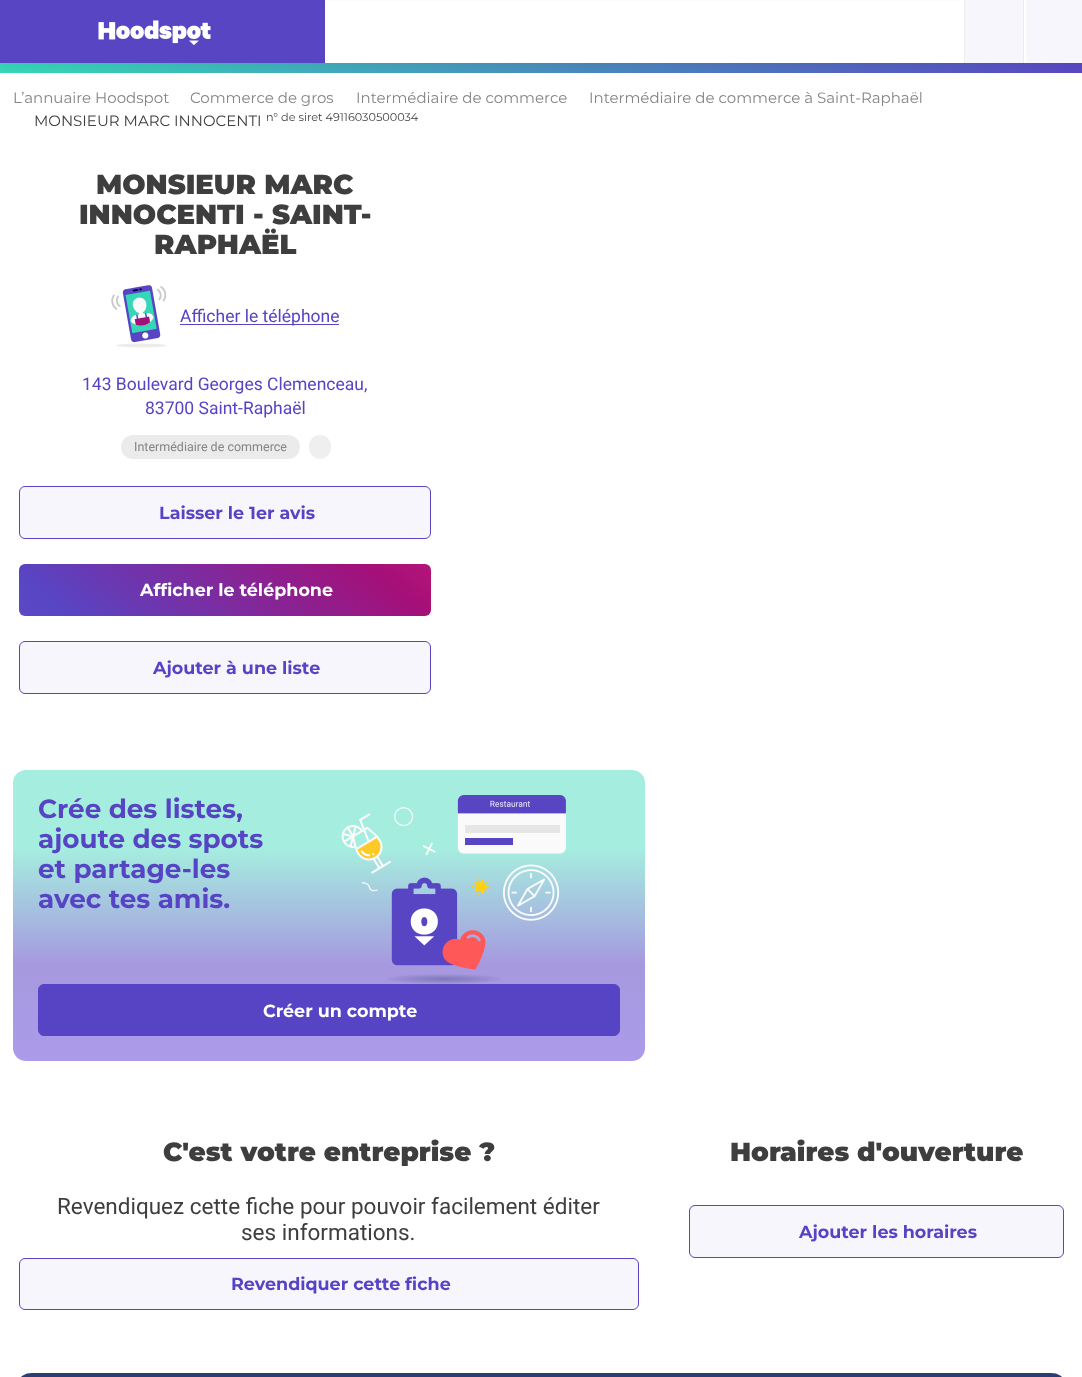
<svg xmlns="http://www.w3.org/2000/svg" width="1082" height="1377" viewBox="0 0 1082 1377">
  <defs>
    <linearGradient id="g1" gradientUnits="userSpaceOnUse" x1="0" y1="36" x2="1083" y2="36"><stop offset="0" stop-color="#36d7b7"/><stop offset="1" stop-color="#5947c3"/></linearGradient>
    <filter id="blur1" x="-50%" y="-200%" width="200%" height="500%"><feGaussianBlur stdDeviation="4"/></filter>
    <linearGradient id="g2" gradientUnits="userSpaceOnUse" x1="-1" y1="859" x2="451" y2="321"><stop offset="0" stop-color="#7565cd"/><stop offset="0.33" stop-color="#5845c3"/><stop offset="0.66" stop-color="#a50f78"/><stop offset="1" stop-color="#ff357f"/></linearGradient>
    <linearGradient id="g3" gradientUnits="userSpaceOnUse" x1="329" y1="770" x2="329" y2="1061"><stop offset="0.27" stop-color="#a5eddf"/><stop offset="0.67" stop-color="#a699df"/><stop offset="1" stop-color="#ab9bea"/></linearGradient>
  </defs>
  <rect width="100%" height="100%" fill="#ffffff"/>
  <rect x="0" y="63" width="1082" height="10" fill="url(#g1)"/>
  <rect x="0" y="4" width="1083" height="62" fill="#000231" fill-opacity="0.05" filter="url(#blur1)"/>
  <rect x="325" y="1" width="701" height="62" fill="#ffffff"/>
  <rect x="0" y="0" width="325" height="63" fill="#5845c3"/>
  <image x="98" y="20" width="113" height="26" href="img1.png"/>
  <rect x="1023" y="0" width="1" height="63" fill="#ebebeb"/>
  <rect x="964" y="0" width="1" height="63" fill="#ebebeb"/>
  <rect x="965" y="0" width="58" height="63" fill="#f7f6fc"/>
  <rect x="1026" y="0" width="56" height="63" fill="#f7f6fc"/>
  <text x="13" y="103" font-family="Montserrat" font-size="15" fill="#858585">L’annuaire Hoodspot</text>
  <text x="190" y="103" font-family="Montserrat" font-size="15" fill="#858585">Commerce de gros</text>
  <text x="356" y="103" font-family="Montserrat" font-size="15" fill="#858585">Intermédiaire de commerce</text>
  <text x="589" y="103" font-family="Montserrat" font-size="15" fill="#858585">Intermédiaire de commerce à Saint-Raphaël</text>
  <text x="34" y="126" font-family="Montserrat" font-size="15" fill="#3e3e3e">MONSIEUR MARC INNOCENTI</text>
  <text x="266" y="121" font-family="Montserrat" font-size="11.25" fill="#3e3e3e">n° de siret 49116030500034</text>
  <text x="96" y="194" font-family="Montserrat" font-size="27.5" font-weight="900" fill="#3e3e3e">MONSIEUR MARC</text>
  <text x="79" y="224" font-family="Montserrat" font-size="27.5" font-weight="900" fill="#3e3e3e">INNOCENTI - SAINT-</text>
  <text x="154" y="254" font-family="Montserrat" font-size="27.5" font-weight="900" fill="#3e3e3e">RAPHAËL</text>
  <image x="111" y="285" width="55" height="63" href="img2.png"/>
  <rect x="180" y="324" width="159" height="1" fill="#5644c4"/>
  <text x="180" y="322" font-family="Roboto" font-size="17.5" fill="#5644c4">Afficher le téléphone</text>
  <text x="82" y="390" font-family="Roboto" font-size="17.5" fill="#5644c4">143 Boulevard Georges Clemenceau,</text>
  <text x="145" y="414" font-family="Roboto" font-size="17.5" fill="#5644c4">83700 Saint‑Raphaël</text>
  <rect x="121" y="435" width="179" height="24" rx="12" fill="#ebebeb"/>
  <text x="134" y="451" font-family="Roboto" font-size="12.5" fill="#858585">Intermédiaire de commerce</text>
  <rect x="309" y="435" width="22" height="24" rx="11" fill="#efefef"/>
  <rect x="19.5" y="486.5" width="411" height="52" rx="5.5" fill="#f7f6fc" stroke="#5845c3"/>
  <text x="159" y="519" font-family="Montserrat" font-size="17.5" font-weight="bold" fill="#5644c4">Laisser le 1er avis</text>
  <rect x="19" y="564" width="412" height="52" rx="6" fill="url(#g2)"/>
  <text x="140" y="596" font-family="Montserrat" font-size="17.5" font-weight="bold" fill="#ffffff">Afficher le téléphone</text>
  <rect x="19.5" y="641.5" width="411" height="52" rx="5.5" fill="#f7f6fc" stroke="#5845c3"/>
  <text x="153" y="674" font-family="Montserrat" font-size="17.5" font-weight="bold" fill="#5644c4">Ajouter à une liste</text>
  <rect x="13" y="770" width="632" height="291" rx="13" fill="url(#g3)"/>
  <text x="38" y="818" font-family="Montserrat" font-size="26.25" font-weight="bold" fill="#5644c4">Crée des listes,</text>
  <text x="38" y="848" font-family="Montserrat" font-size="26.25" font-weight="bold" fill="#5644c4">ajoute des spots</text>
  <text x="38" y="878" font-family="Montserrat" font-size="26.25" font-weight="bold" fill="#5644c4">et partage-les</text>
  <text x="38" y="908" font-family="Montserrat" font-size="26.25" font-weight="bold" fill="#5644c4">avec tes amis.</text>
  <image x="341" y="795" width="225" height="189" href="img3.png"/>
  <rect x="38.5" y="984.5" width="581" height="51" rx="5.5" fill="#5644c4" stroke="#5644c4"/>
  <text x="263" y="1017" font-family="Montserrat" font-size="17.5" font-weight="bold" fill="#ffffff">Créer un compte</text>
  <text x="163" y="1161" font-family="Montserrat" font-size="26.25" font-weight="900" fill="#3e3e3e">C'est votre entreprise ?</text>
  <text x="57" y="1214" font-family="Roboto" font-size="22.5" fill="#3e3e3e">Revendiquez cette fiche pour pouvoir facilement éditer</text>
  <text x="241" y="1240" font-family="Roboto" font-size="22.5" fill="#3e3e3e">ses informations.</text>
  <rect x="19.5" y="1258.5" width="619" height="51" rx="5.5" fill="#f7f6fc" stroke="#5845c3"/>
  <text x="231" y="1290" font-family="Montserrat" font-size="17.5" font-weight="bold" fill="#5644c4">Revendiquer cette fiche</text>
  <text x="730" y="1161" font-family="Montserrat" font-size="26.25" font-weight="900" fill="#3e3e3e">Horaires d'ouverture</text>
  <rect x="689.5" y="1205.5" width="374" height="52" rx="5.5" fill="#f7f6fc" stroke="#5845c3"/>
  <text x="799" y="1238" font-family="Montserrat" font-size="17.5" font-weight="bold" fill="#5644c4">Ajouter les horaires</text>
  <rect x="19" y="1373" width="1045" height="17" rx="13" fill="#2b3e72"/>
</svg>
